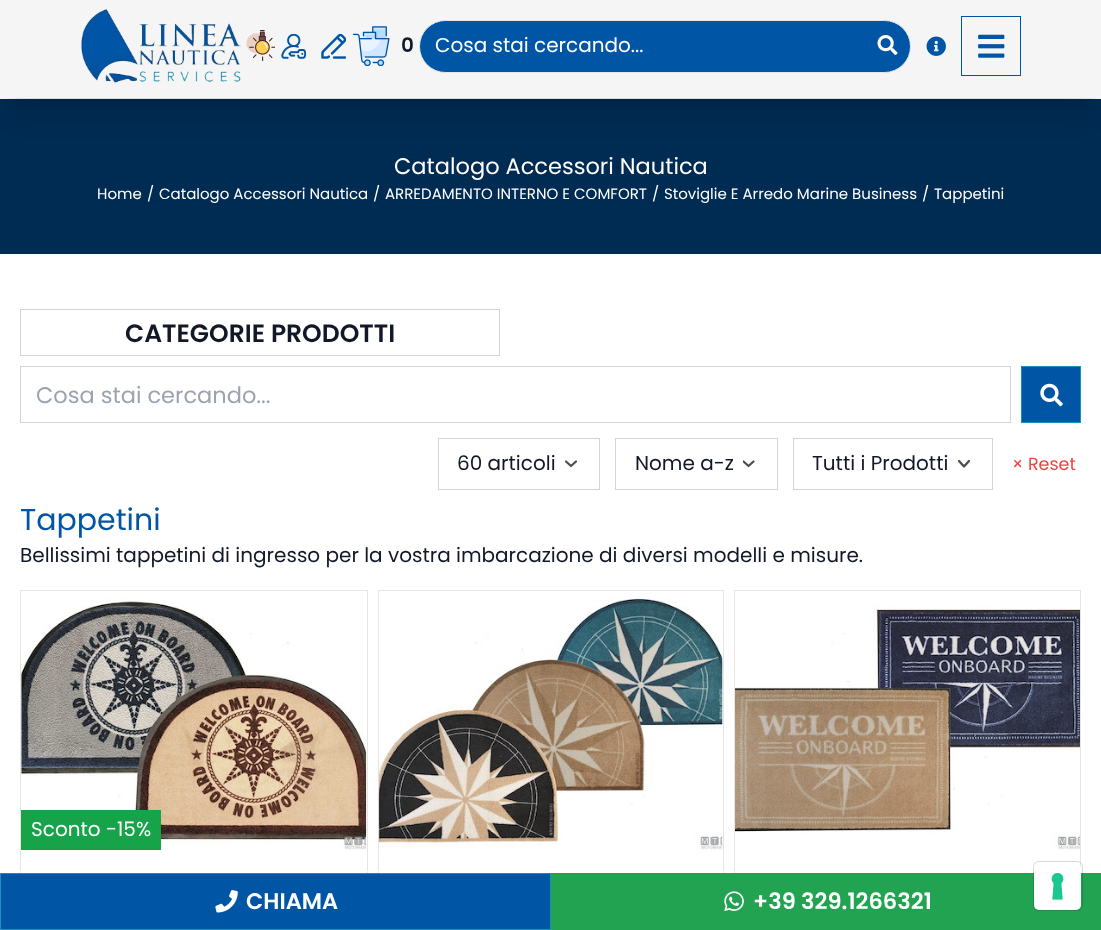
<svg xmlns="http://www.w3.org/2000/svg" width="1101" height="930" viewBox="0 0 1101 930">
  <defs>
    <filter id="blur1" x="-50%" y="-200%" width="200%" height="500%"><feGaussianBlur stdDeviation="6"/></filter>
    <filter id="blur2" x="-50%" y="-200%" width="200%" height="500%"><feGaussianBlur stdDeviation="15.5"/></filter>
    <clipPath id="clip1"><rect x="743" y="456" width="12" height="15"/></clipPath>
  </defs>
  <rect width="100%" height="100%" fill="#ffffff"/>
  <rect x="0" y="99" width="1101" height="155" fill="#002b52"/>
  <rect x="8" y="16" width="1086" height="84" fill="#000000" fill-opacity="0.1" filter="url(#blur1)"/>
  <rect x="6" y="30" width="1089" height="86" fill="#000000" fill-opacity="0.1" filter="url(#blur2)"/>
  <rect x="0" y="0" width="1101" height="98" fill="#f5f5f5"/>
  <image x="81" y="8" width="160" height="75" href="img1.png"/>
  <image x="246" y="30" width="29" height="31" href="img2.png"/>
  <image x="281" y="34" width="25" height="25" href="img3.png"/>
  <image x="321" y="34" width="25" height="25" href="img4.png"/>
  <image x="353" y="26" width="37" height="40" href="img5.png"/>
  <text x="401" y="52" font-family="Poppins" font-size="20" font-weight="600" fill="#111827">0</text>
  <rect x="419.5" y="20.5" width="491" height="52" rx="26" fill="#0055a5" stroke="#e5e7eb"/>
  <text x="435" y="52" font-family="Poppins" font-size="20" fill="#ffffff">Cosa stai cercando...</text>
  <image x="877" y="35" width="21" height="20" href="img6.png"/>
  <image x="926" y="36" width="20" height="20" href="img7.png"/>
  <rect x="961.5" y="16.5" width="59" height="59" fill="none" stroke="#0055a5"/>
  <image x="978" y="34" width="27" height="24" href="img8.png"/>
  <text x="394" y="174" font-family="Poppins" font-size="22.5" fill="#ffffff">Catalogo Accessori Nautica</text>
  <text x="97" y="199" font-family="Poppins" font-size="15" fill="#ffffff">Home</text>
  <text x="147" y="199" font-family="Poppins" font-size="15" fill="#ffffff">/</text>
  <text x="159" y="199" font-family="Poppins" font-size="15" fill="#ffffff">Catalogo Accessori Nautica</text>
  <text x="373" y="199" font-family="Poppins" font-size="15" fill="#ffffff">/</text>
  <text x="385" y="199" font-family="Poppins" font-size="15" fill="#ffffff">ARREDAMENTO INTERNO E COMFORT</text>
  <text x="652" y="199" font-family="Poppins" font-size="15" fill="#ffffff">/</text>
  <text x="664" y="199" font-family="Poppins" font-size="15" fill="#ffffff">Stoviglie E Arredo Marine Business</text>
  <text x="922" y="199" font-family="Poppins" font-size="15" fill="#ffffff">/</text>
  <text x="934" y="199" font-family="Poppins" font-size="15" fill="#ffffff">Tappetini</text>
  <rect x="20" y="309" width="480" height="1" fill="#d1d5db"/>
  <rect x="499" y="309" width="1" height="47" fill="#d1d5db"/>
  <rect x="20" y="309" width="1" height="47" fill="#d1d5db"/>
  <rect x="21" y="355" width="478" height="1" fill="#d1d5db"/>
  <text x="125" y="342" font-family="Poppins" font-size="25" font-weight="600" fill="#111827">CATEGORIE PRODOTTI</text>
  <rect x="20.5" y="366.5" width="990" height="56" fill="none" stroke="#d1d5db"/>
  <text x="36" y="403" font-family="Poppins" font-size="22.5" fill="#9ca3af">Cosa stai cercando...</text>
  <rect x="1021.5" y="366.5" width="59" height="56" fill="#0055a5" stroke="#1593bc"/>
  <image x="1040" y="383" width="23" height="24" href="img9.png"/>
  <rect x="438.5" y="438.5" width="161" height="51" fill="none" stroke="#d1d5db"/>
  <text x="457" y="470" font-family="Poppins" font-size="20" fill="#111827">60 articoli</text>
  <path d="M566 461.5L571 466L576 461.5" fill="none" stroke="#4d4d4d" stroke-width="2.2" stroke-linecap="round" stroke-linejoin="round"/>
  <rect x="615.5" y="438.5" width="162" height="51" fill="none" stroke="#d1d5db"/>
  <text x="635" y="470" font-family="Poppins" font-size="20" fill="#111827">Nome a-z</text>
  <g clip-path="url(#clip1)">
    <path d="M743.5 461.5L748.5 466L753.5 461.5" fill="none" stroke="#4d4d4d" stroke-width="2.2" stroke-linecap="round" stroke-linejoin="round"/>
  </g>
  <rect x="793.5" y="438.5" width="199" height="51" fill="none" stroke="#d1d5db"/>
  <text x="812" y="470" font-family="Poppins" font-size="20" fill="#111827">Tutti i Prodotti</text>
  <path d="M959 461L964 466.5L969 461" fill="none" stroke="#4d4d4d" stroke-width="2.3" stroke-linecap="round" stroke-linejoin="round"/>
  <text x="1012" y="470" font-family="Poppins" font-size="17.5" fill="#ef4444">× Reset</text>
  <text x="20" y="530" font-family="Poppins" font-size="30" fill="#0055a5">Tappetini</text>
  <text x="20" y="562" font-family="Poppins" font-size="20" fill="#111827">Bellissimi tappetini di ingresso per la vostra imbarcazione di diversi modelli e misure.</text>
  <rect x="20.5" y="590.5" width="347" height="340" fill="none" stroke="#e7e5e4"/>
  <image x="21" y="598" width="346" height="252" href="img10.png"/>
  <rect x="21" y="810" width="140" height="40" fill="#16a34a"/>
  <text x="31" y="836" font-family="Poppins" font-size="20" fill="#ffffff">Sconto -15%</text>
  <rect x="378.5" y="590.5" width="345" height="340" fill="none" stroke="#e7e5e4"/>
  <image x="378" y="598" width="345" height="252" href="img11.png"/>
  <rect x="734.5" y="590.5" width="346" height="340" fill="none" stroke="#e7e5e4"/>
  <image x="735" y="605" width="345" height="245" href="img12.png"/>
  <rect x="20" y="871" width="1061" height="1" fill="#ffffff"/>
  <rect x="0.5" y="873.5" width="550" height="56" fill="#0055a5" stroke="#1593bc"/>
  <image x="215" y="890" width="23" height="23" href="img13.png"/>
  <text x="246" y="909" font-family="Poppins" font-size="22.5" font-weight="600" fill="#ffffff">CHIAMA</text>
  <rect x="551" y="873" width="550" height="57" fill="#21a351"/>
  <image x="724" y="891" width="20" height="20" href="img14.png"/>
  <text x="753" y="909" font-family="Poppins" font-size="22.5" font-weight="600" fill="#ffffff">+39 329.1266321</text>
  <rect x="1033.5" y="861.5" width="49" height="49" rx="5.5" fill="none" stroke="#000000" stroke-opacity="0.15"/>
  <rect x="1034" y="863" width="47" height="47" rx="5" fill="#ffffff"/>
  <image x="1051" y="872" width="13" height="28" href="img15.png"/>
</svg>
